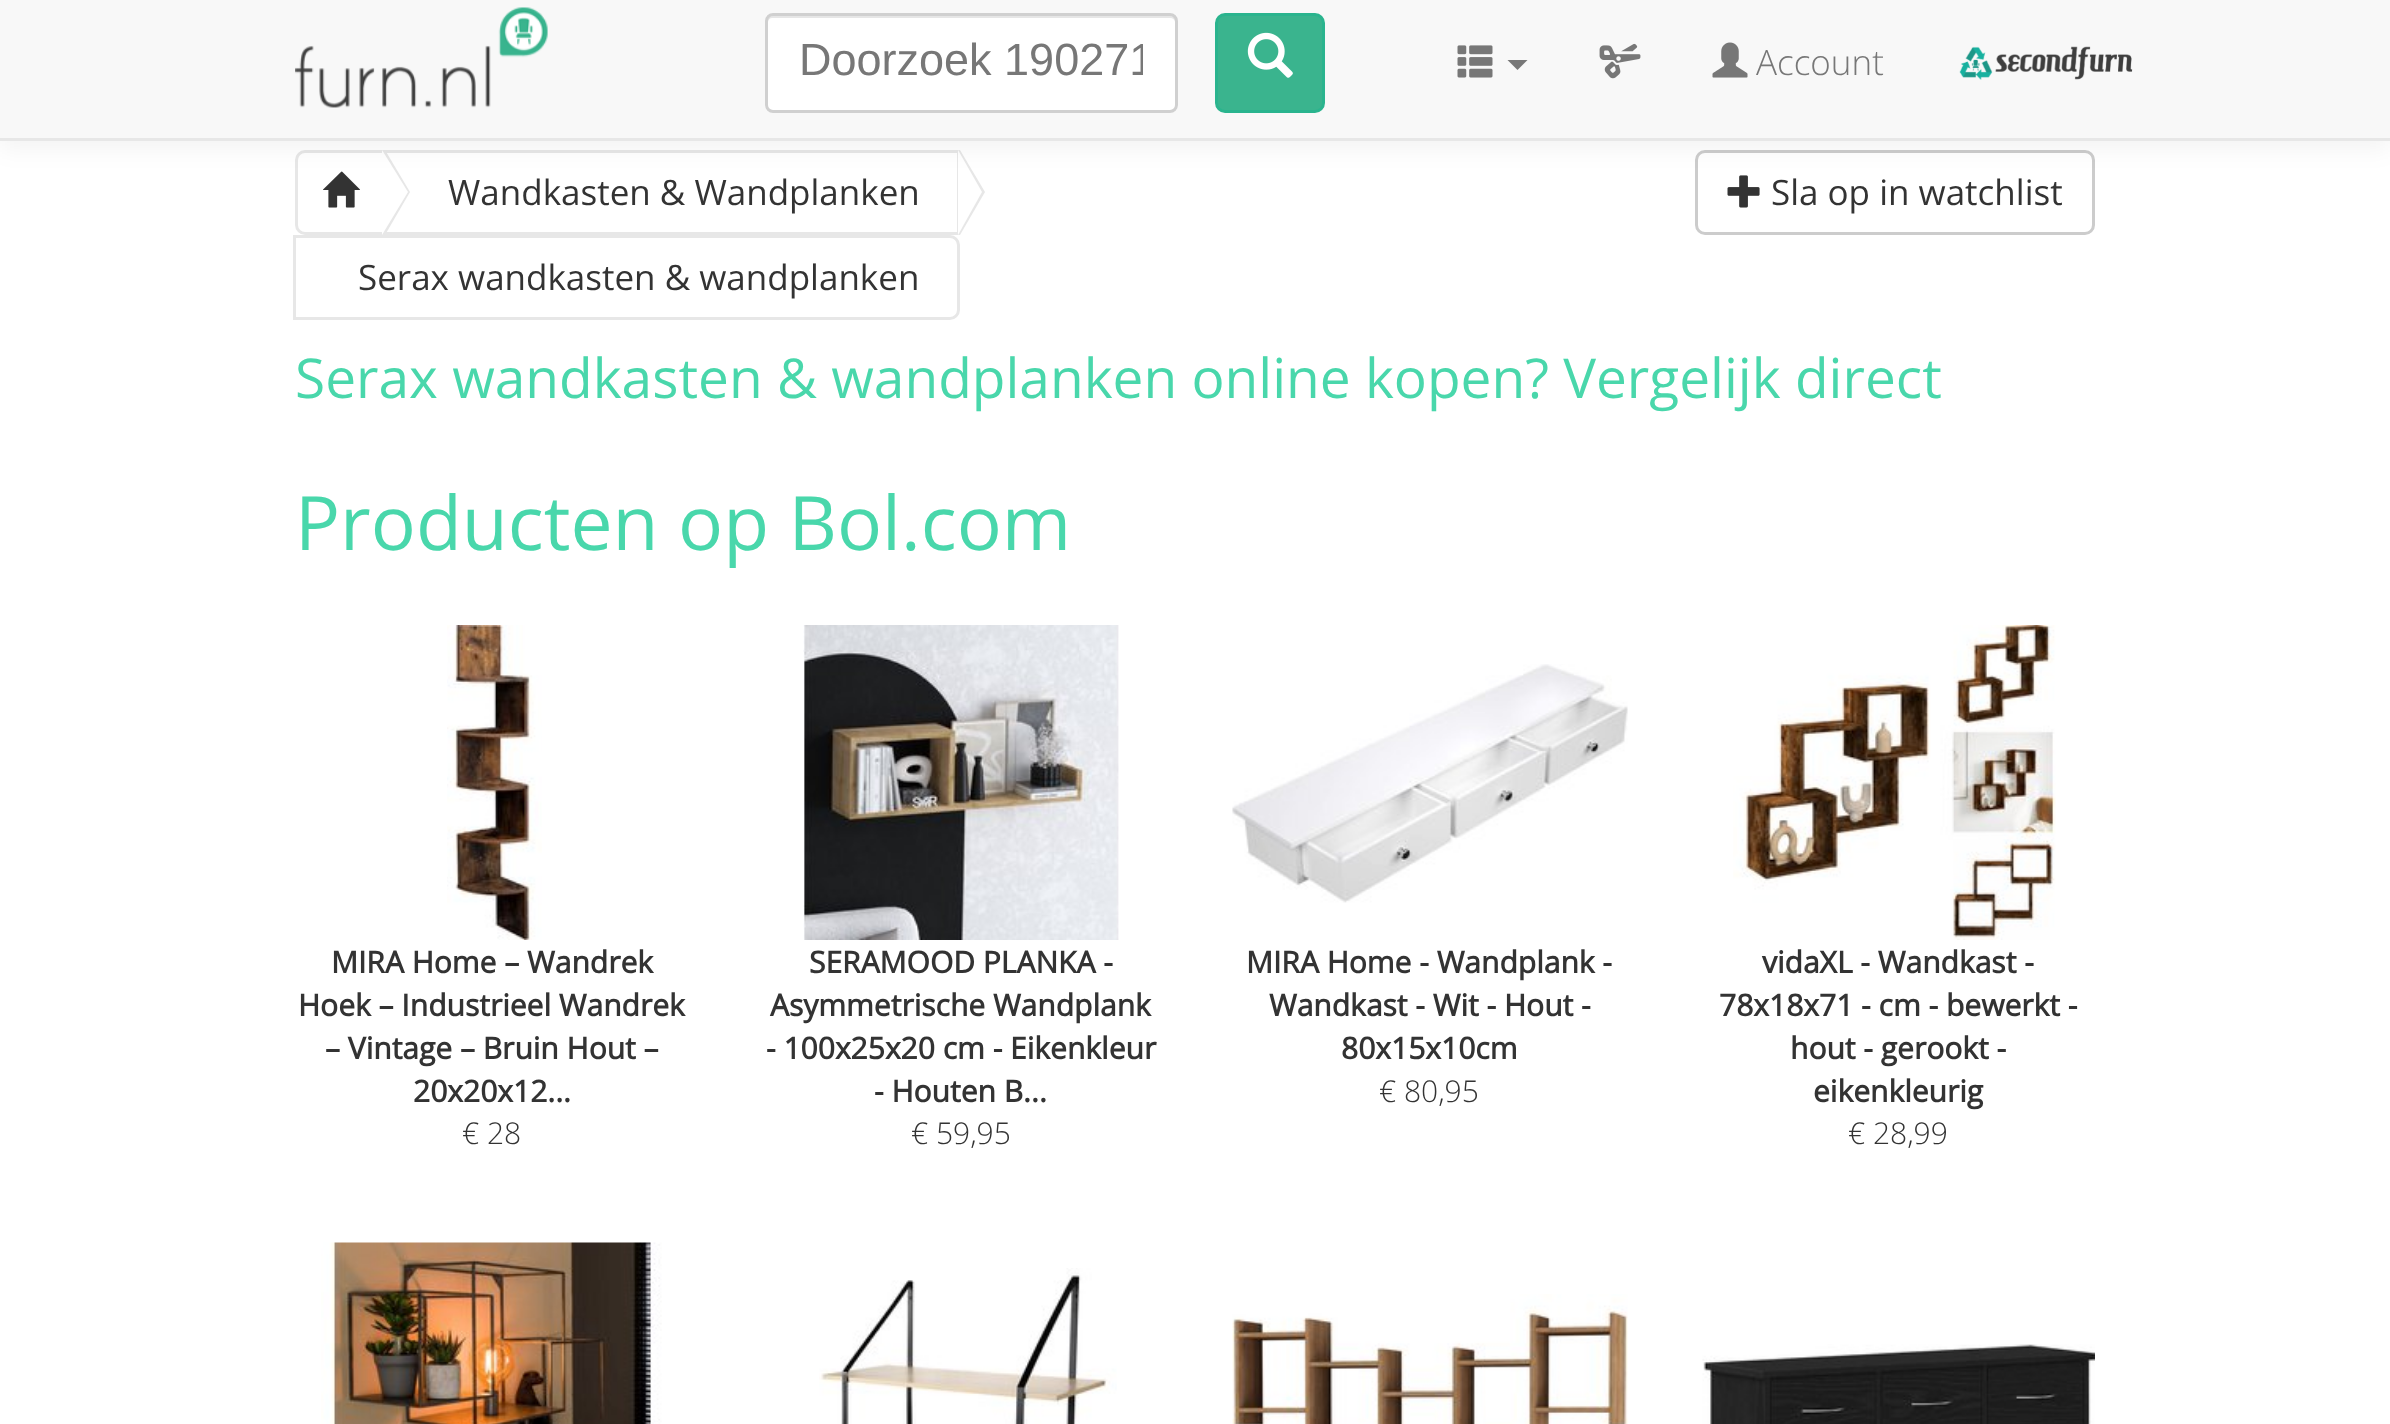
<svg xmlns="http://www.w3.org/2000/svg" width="2390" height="1424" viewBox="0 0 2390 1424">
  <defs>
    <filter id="blur1" x="-50%" y="-200%" width="200%" height="500%"><feGaussianBlur stdDeviation="12.5"/></filter>
    <clipPath id="clip1"><rect x="800" y="35" width="343" height="53"/></clipPath>
  </defs>
  <rect width="100%" height="100%" fill="#ffffff"/>
  <path d="M305 151.5H383.5V233.5H305C300.5 233.5 296.5 229.5 296.5 225V160C296.5 155.5 300.5 151.5 305 151.5Z" fill="none" stroke="#e7e7e7" stroke-width="3"/>
  <rect x="384.5" y="151.5" width="574" height="82" fill="none" stroke="#e7e7e7" stroke-width="3"/>
  <path d="M385 235V150L410 192Z" fill="#e7e7e7"/>
  <path d="M382 235V150L408 192Z" fill="#ffffff"/>
  <image x="323" y="171" width="37" height="37" href="img7.png"/>
  <path d="M960 235V150L985 192Z" fill="#e7e7e7"/>
  <path d="M958 235V150L982 192Z" fill="#ffffff"/>
  <rect x="1696.5" y="151.5" width="397" height="82" rx="8.5" fill="none" stroke="#cccccc" stroke-width="3"/>
  <image x="1727" y="175" width="33" height="33" href="img8.png"/>
  <rect x="0" y="8" width="2390" height="140" fill="#000000" fill-opacity="0.05" filter="url(#blur1)"/>
  <rect x="0" y="0" width="2390" height="138" fill="#f8f8f8"/>
  <rect x="0" y="138" width="2390" height="3" fill="#e7e7e7"/>
  <image x="295" y="7" width="253" height="101" href="img1.png"/>
  <rect x="765" y="13" width="413" height="100" rx="8" fill="#ffffff"/>
  <path d="M772 18H1170C1173 18 1175 20 1175 22V20C1175 17 1173 15 1170 15H773C770 15 768 17 768 20V22C768 20 770 18 772 18Z" fill="#e6e6e6"/>
  <rect x="766.5" y="14.5" width="410" height="97" rx="6.5" fill="none" stroke="#d0d0d0" stroke-width="3"/>
  <g clip-path="url(#clip1)">
    <text x="799" y="75" font-family="Liberation Sans" font-size="45" fill="#777777">Doorzoek 190271</text>
  </g>
  <rect x="1216.5" y="14.5" width="107" height="97" rx="8.5" fill="#3ab48e" stroke="#2ab48e" stroke-width="3"/>
  <image x="1247" y="32" width="46" height="46" href="img2.png"/>
  <image x="1457" y="45" width="36" height="33" href="img3.png"/>
  <path d="M1507.5 60H1527.5L1517.5 70Z" fill="#777777"/>
  <image x="1599" y="43" width="42" height="36" href="img4.png"/>
  <image x="1712" y="42" width="36" height="36" href="img5.png"/>
  <text x="1756" y="75" font-family="Open Sans" font-size="35" font-weight="300" fill="#777777">Account</text>
  <image x="1959" y="46" width="174" height="34" href="img6.png"/>
  <text x="448" y="205" font-family="Open Sans" font-size="35" fill="#333333">Wandkasten &amp; Wandplanken</text>
  <path d="M294.5 236.5H950C954.5 236.5 958.5 240.5 958.5 245V310C958.5 314.5 954.5 318.5 950 318.5H294.5Z" fill="none" stroke="#e7e7e7" stroke-width="3"/>
  <text x="358" y="290" font-family="Open Sans" font-size="35" fill="#333333">Serax wandkasten &amp; wandplanken</text>
  <text x="1771" y="205" font-family="Open Sans" font-size="35" fill="#333333">Sla op in watchlist</text>
  <text x="295" y="398" font-family="Open Sans" font-size="55" fill="#49d7ab">Serax wandkasten &amp; wandplanken online kopen? Vergelijk direct</text>
  <text x="295" y="550" font-family="Open Sans" font-size="75" fill="#49d7ab">Producten op Bol.com</text>
  <image x="447" y="625" width="95" height="315" href="img9.png"/>
  <text x="331" y="973" font-family="Open Sans" font-size="30" font-weight="bold" fill="#333333">MIRA Home – Wandrek</text>
  <text x="298" y="1016" font-family="Open Sans" font-size="30" font-weight="bold" fill="#333333">Hoek – Industrieel Wandrek</text>
  <text x="325" y="1059" font-family="Open Sans" font-size="30" font-weight="bold" fill="#333333">– Vintage – Bruin Hout –</text>
  <text x="413" y="1102" font-family="Open Sans" font-size="30" font-weight="bold" fill="#333333">20x20x12...</text>
  <text x="462" y="1144" font-family="Open Sans" font-size="30" font-weight="300" fill="#333333">€ 28</text>
  <image x="803" y="625" width="316" height="315" href="img10.png"/>
  <text x="809" y="973" font-family="Open Sans" font-size="30" font-weight="bold" fill="#333333">SERAMOOD PLANKA -</text>
  <text x="770" y="1016" font-family="Open Sans" font-size="30" font-weight="bold" fill="#333333">Asymmetrische Wandplank</text>
  <text x="766" y="1059" font-family="Open Sans" font-size="30" font-weight="bold" fill="#333333">- 100x25x20 cm - Eikenkleur</text>
  <text x="874" y="1102" font-family="Open Sans" font-size="30" font-weight="bold" fill="#333333">- Houten B...</text>
  <text x="911" y="1144" font-family="Open Sans" font-size="30" font-weight="300" fill="#333333">€ 59,95</text>
  <image x="1232" y="664" width="396" height="239" href="img11.png"/>
  <text x="1246" y="973" font-family="Open Sans" font-size="30" font-weight="bold" fill="#333333">MIRA Home - Wandplank -</text>
  <text x="1269" y="1016" font-family="Open Sans" font-size="30" font-weight="bold" fill="#333333">Wandkast - Wit - Hout -</text>
  <text x="1341" y="1059" font-family="Open Sans" font-size="30" font-weight="bold" fill="#333333">80x15x10cm</text>
  <text x="1379" y="1102" font-family="Open Sans" font-size="30" font-weight="300" fill="#333333">€ 80,95</text>
  <image x="1733" y="625" width="323" height="315" href="img12.png"/>
  <text x="1762" y="973" font-family="Open Sans" font-size="30" font-weight="bold" fill="#333333">vidaXL - Wandkast -</text>
  <text x="1719" y="1016" font-family="Open Sans" font-size="30" font-weight="bold" fill="#333333">78x18x71 - cm - bewerkt -</text>
  <text x="1790" y="1059" font-family="Open Sans" font-size="30" font-weight="bold" fill="#333333">hout - gerookt -</text>
  <text x="1813" y="1102" font-family="Open Sans" font-size="30" font-weight="bold" fill="#333333">eikenkleurig</text>
  <text x="1848" y="1144" font-family="Open Sans" font-size="30" font-weight="300" fill="#333333">€ 28,99</text>
  <image x="321" y="1242" width="341" height="182" href="img13.png"/>
  <image x="819" y="1268" width="298" height="156" href="img14.png"/>
  <image x="1232" y="1294" width="396" height="130" href="img15.png"/>
  <image x="1702" y="1344" width="393" height="80" href="img16.png"/>
</svg>
